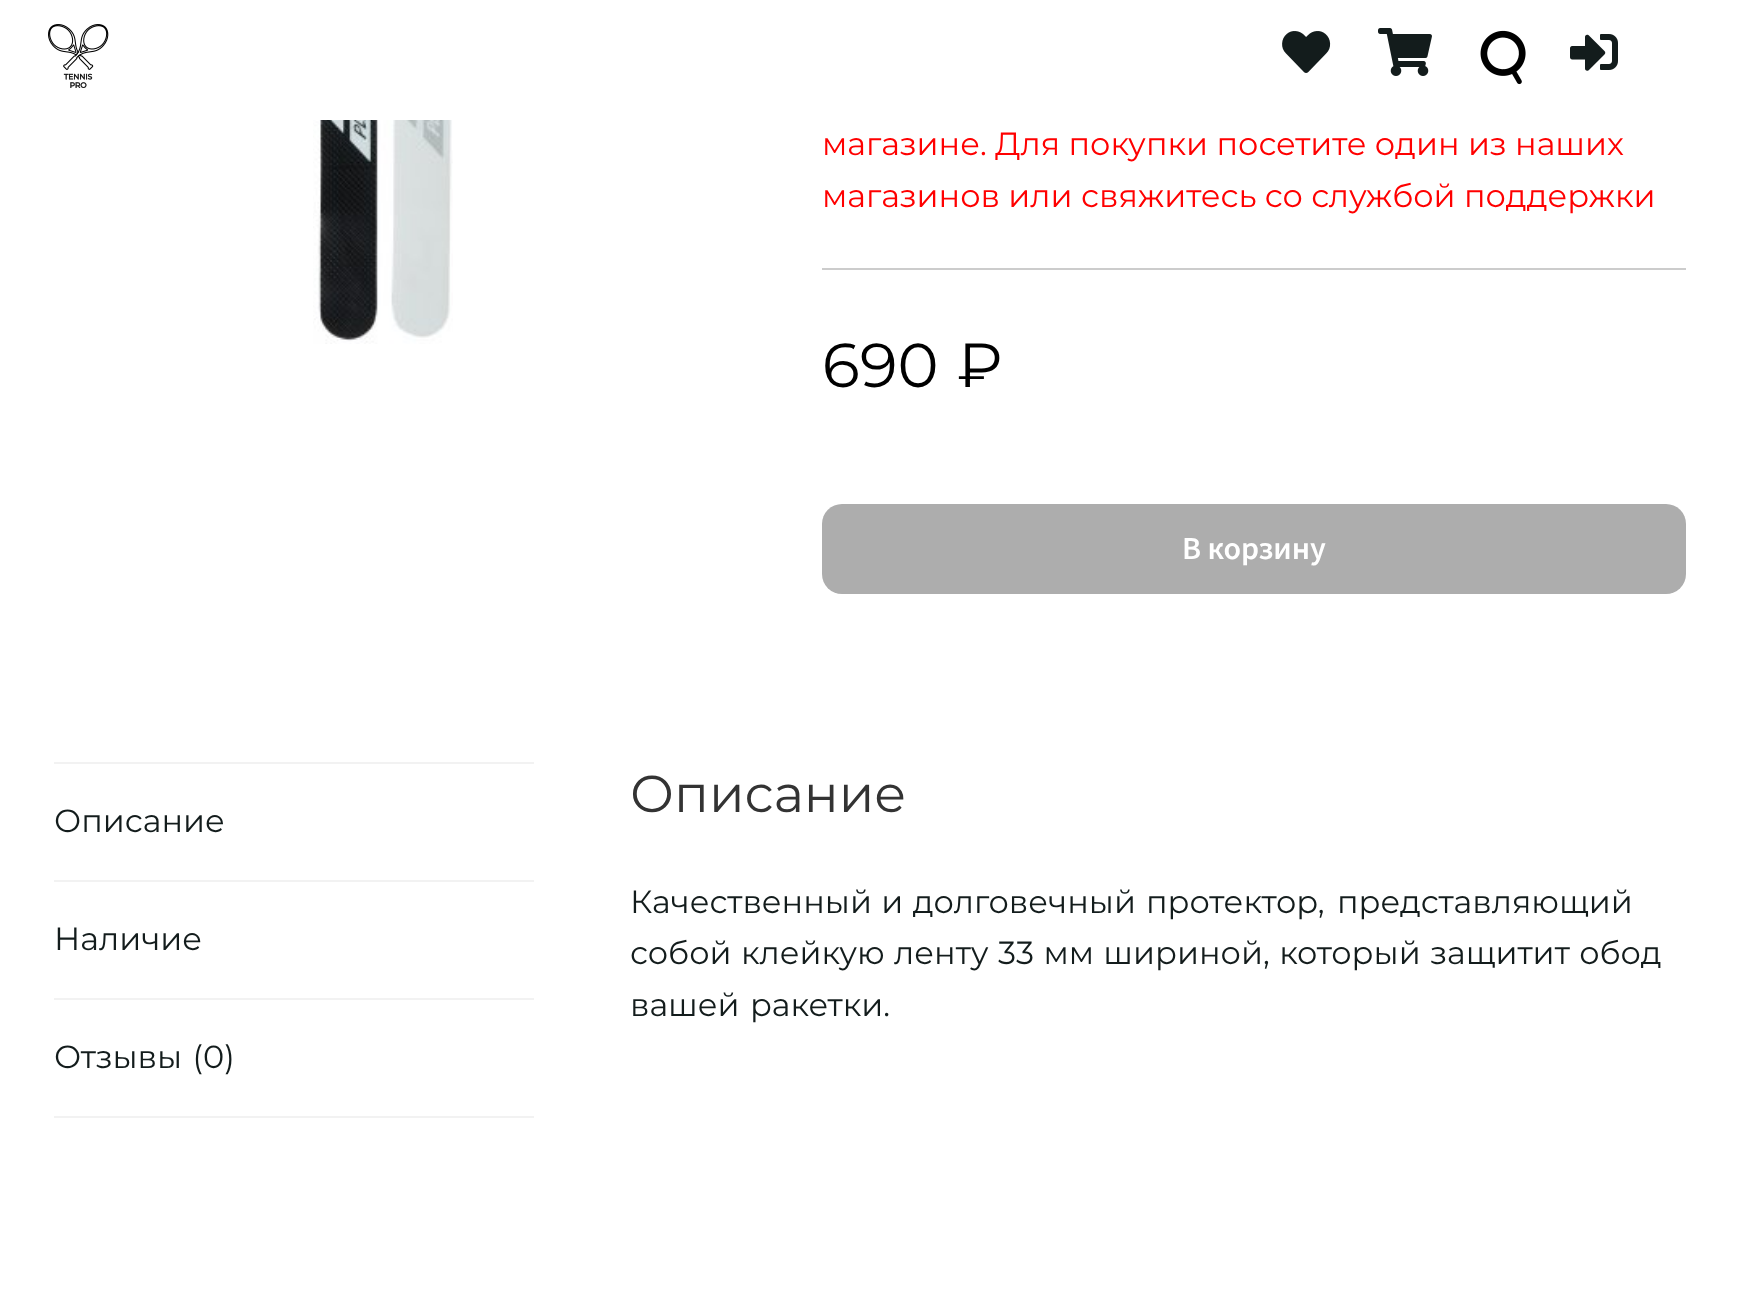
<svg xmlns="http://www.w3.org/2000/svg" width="1740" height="1294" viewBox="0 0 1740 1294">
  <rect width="100%" height="100%" fill="#ffffff"/>
  <image x="48" y="24" width="61" height="64" href="img1.png"/>
  <image x="1282" y="31" width="49" height="42" href="img2.png"/>
  <image x="1378" y="28" width="54" height="48" href="img3.png"/>
  <image x="1480" y="30" width="46" height="55" href="img4.png"/>
  <image x="1570" y="34" width="48" height="37" href="img5.png"/>
  <image x="313" y="120" width="140" height="224" href="img6.png"/>
  <text x="822" y="155" font-family="Montserrat" font-size="32" fill="#ff0000">магазине. Для покупки посетите один из наших</text>
  <text x="822" y="207" font-family="Montserrat" font-size="32" fill="#ff0000">магазинов или свяжитесь со службой поддержки</text>
  <rect x="822" y="268" width="864" height="2" fill="#cccccc"/>
  <text x="822" y="387" font-family="Montserrat" font-size="62" fill="#000000">690</text>
  <text x="957" y="387" font-family="Montserrat" font-size="62" fill="#000000">₽</text>
  <rect x="822" y="504" width="864" height="90" rx="20" fill="#adadad"/>
  <text x="1182" y="559" font-family="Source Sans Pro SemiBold" font-size="32" font-weight="600" fill="#ffffff">В корзину</text>
  <rect x="54" y="762" width="480" height="2" fill="#f2f2f2"/>
  <rect x="54" y="880" width="480" height="2" fill="#f2f2f2"/>
  <text x="54" y="832" font-family="Montserrat" font-size="32" fill="#131c1c">Описание</text>
  <rect x="54" y="998" width="480" height="2" fill="#f2f2f2"/>
  <text x="54" y="950" font-family="Montserrat" font-size="32" fill="#131c1c">Наличие</text>
  <rect x="54" y="1116" width="480" height="2" fill="#f2f2f2"/>
  <text x="54" y="1068" word-spacing="2" font-family="Montserrat" font-size="32" fill="#131c1c">Отзывы (0)</text>
  <text x="630" y="812" font-family="Montserrat" font-size="51.75" fill="#333333">Описание</text>
  <text x="630" y="913" word-spacing="1" font-family="Montserrat" font-size="32" fill="#131c1c">Качественный и долговечный</text>
  <text x="1146" y="913" word-spacing="4" font-family="Montserrat" font-size="32" fill="#131c1c">протектор, представляющий</text>
  <text x="630" y="964" word-spacing="1" font-family="Montserrat" font-size="32" fill="#131c1c">собой клейкую ленту 33 мм шириной, который защитит обод</text>
  <text x="630" y="1016" word-spacing="2" font-family="Montserrat" font-size="32" fill="#131c1c">вашей ракетки.</text>
</svg>
